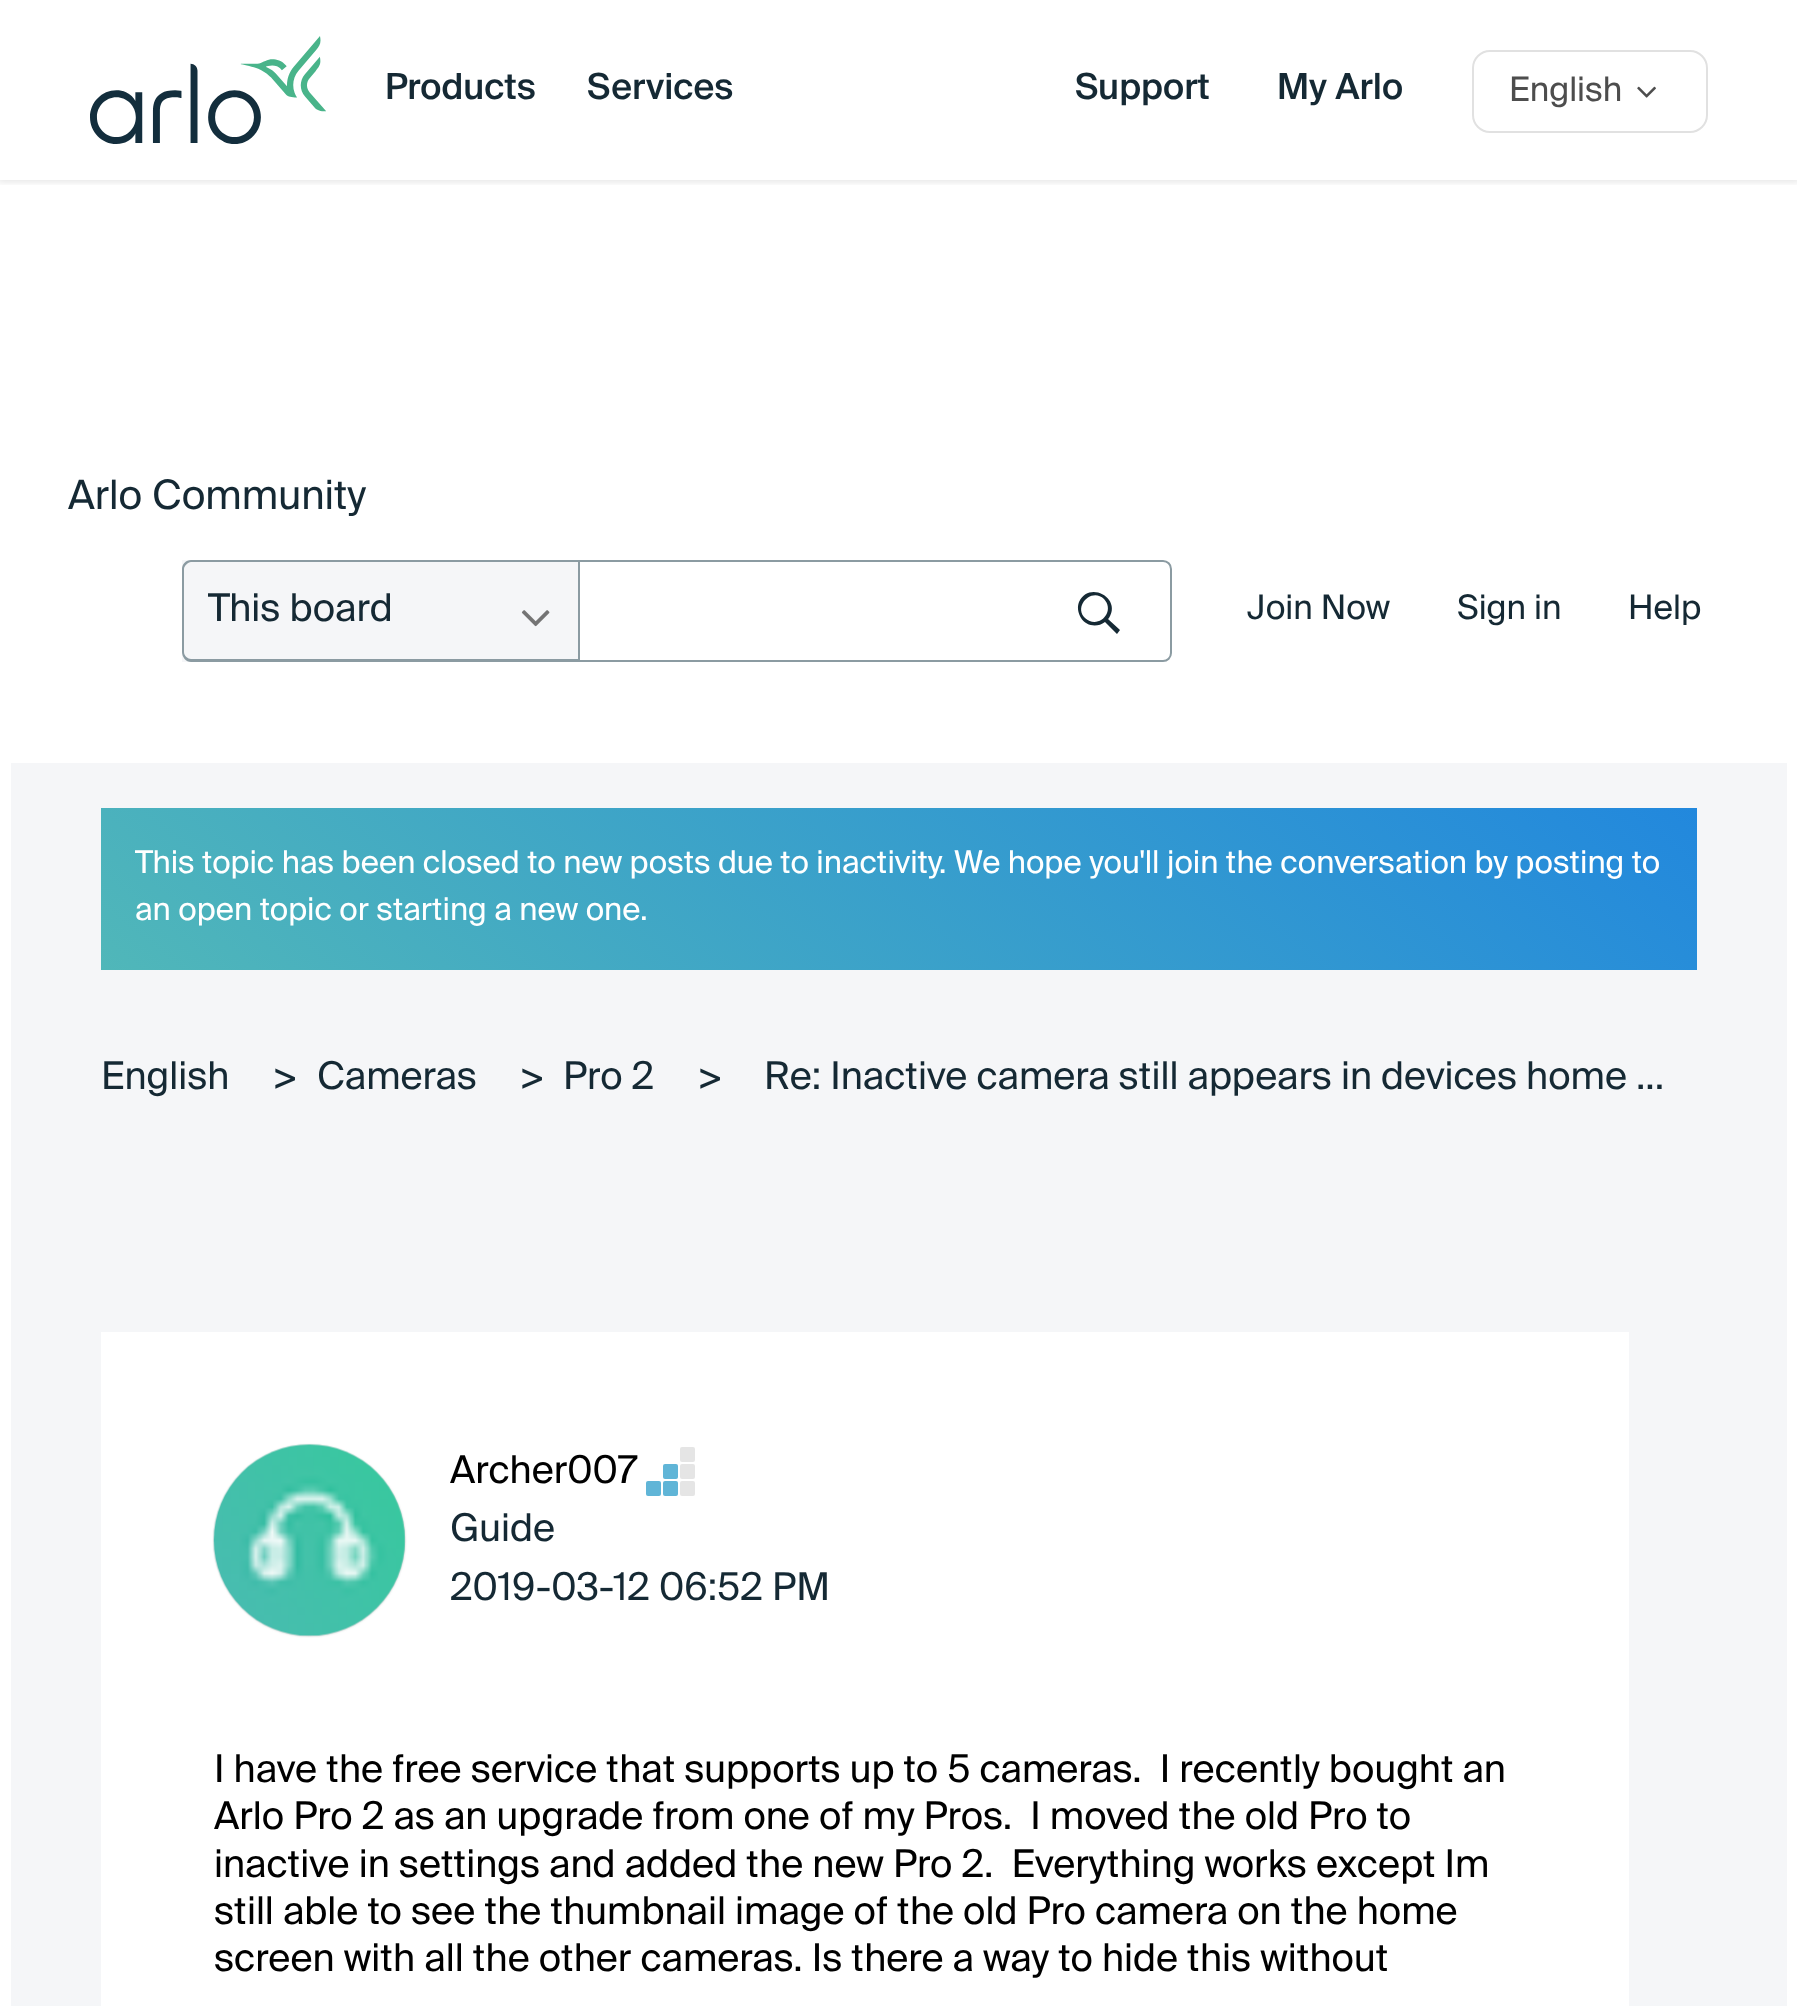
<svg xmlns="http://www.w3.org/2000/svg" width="1797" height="2006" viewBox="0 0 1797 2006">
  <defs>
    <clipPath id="clip1"><rect x="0" y="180" width="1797" height="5"/></clipPath>
    <filter id="blur1" x="-50%" y="-200%" width="200%" height="500%"><feGaussianBlur stdDeviation="3.5"/></filter>
    <linearGradient id="g1" gradientUnits="userSpaceOnUse" x1="1254" y1="450" x2="543" y2="1328"><stop offset="0" stop-color="#2288dd"/><stop offset="1" stop-color="#50b7b9"/></linearGradient>
    <filter id="blur2" x="-50%" y="-200%" width="200%" height="500%"><feGaussianBlur stdDeviation="1"/></filter>
  </defs>
  <rect width="100%" height="100%" fill="#ffffff"/>
  <g clip-path="url(#clip1)">
    <rect x="-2" y="-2" width="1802" height="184" fill="#000000" fill-opacity="0.1" filter="url(#blur1)"/>
  </g>
  <image x="90" y="36" width="236" height="108" href="img1.png"/>
  <text x="385" y="99" font-family="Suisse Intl" font-size="36" font-weight="500" fill="#152934">Products</text>
  <text x="587" y="99" font-family="Suisse Intl" font-size="36" font-weight="500" fill="#152934">Services</text>
  <text x="1075" y="99" font-family="Suisse Intl" font-size="36" font-weight="500" fill="#152934">Support</text>
  <text x="1277" y="99" font-family="Suisse Intl" font-size="36" font-weight="500" fill="#152934">My Arlo</text>
  <rect x="1473" y="51" width="234" height="81" rx="17" fill="none" stroke="#e1e1e1" stroke-width="2"/>
  <text x="1509" y="101" font-family="Suisse Intl" font-size="33.75" fill="#4d4d4d">English</text>
  <image x="1637" y="86" width="19" height="12" href="img2.png"/>
  <text x="68" y="509" font-family="Suisse Intl" font-size="40.5" fill="#152934">Arlo Community</text>
  <rect x="182" y="560" width="396" height="102" fill="#f5f6f8"/>
  <image x="521" y="610" width="29" height="17" href="img3.png"/>
  <path d="M579 561H1163C1167.5 561 1171 564.5 1171 569V653C1171 657.5 1167.5 661 1163 661H579Z" fill="none" stroke="#8b9ba2" stroke-width="2"/>
  <path d="M191 560H580V662H191C186 662 182 657 182 652V569C182 564 186 560 191 560ZM191 562H580V659H191C188 659 184 656 184 652V569C184 566 188 562 191 562Z" fill="#8b9ba2" fill-rule="evenodd"/>
  <text x="208" y="621" font-family="Suisse Intl" font-size="38.25" fill="#152934">This board</text>
  <path d="M1109 618C1122 598 1089 580 1079 602C1077 607 1078 613 1081 618C1086 626 1097 628 1105 622L1117 634L1120 630L1108 619ZM1104 599C1116 612 1098 630 1085 618C1073 606 1092 587 1104 599Z" fill="#152934"/>
  <text x="1247" y="619" font-family="Suisse Intl" font-size="33.75" fill="#152934">Join Now</text>
  <text x="1457" y="619" font-family="Suisse Intl" font-size="33.75" fill="#152934">Sign in</text>
  <text x="1628" y="619" font-family="Suisse Intl" font-size="33.75" fill="#152934">Help</text>
  <rect x="11" y="763" width="1776" height="466" fill="#f5f6f8"/>
  <rect x="101" y="808" width="1596" height="162" fill="url(#g1)"/>
  <text x="135" y="873" font-family="Suisse Intl" font-size="31.5" fill="#ffffff">This topic has been closed to new posts due to inactivity. We hope you'll join the conversation by posting to</text>
  <text x="135" y="920" font-family="Suisse Intl" font-size="31.5" fill="#ffffff">an open topic or starting a new one.</text>
  <text x="101" y="1089" font-family="Suisse Intl" font-size="38.25" fill="#152934">English</text>
  <text x="272" y="1089" font-family="Suisse Intl" font-size="38.25" fill="#152934">&gt;</text>
  <text x="317" y="1089" font-family="Suisse Intl" font-size="38.25" fill="#152934">Cameras</text>
  <text x="519" y="1089" font-family="Suisse Intl" font-size="38.25" fill="#152934">&gt;</text>
  <text x="563" y="1089" font-family="Suisse Intl" font-size="38.25" fill="#152934">Pro 2</text>
  <text x="697" y="1089" font-family="Suisse Intl" font-size="38.25" fill="#152934">&gt;</text>
  <text x="764" y="1089" font-family="Suisse Intl" font-size="38.25" fill="#152934">Re: Inactive camera still appears in devices home ...</text>
  <rect x="11" y="1229" width="1776" height="777" fill="#f5f6f8"/>
  <rect x="101" y="1332" width="1528" height="674" fill="#ffffff"/>
  <rect x="214" y="1445" width="191" height="191" rx="95.5" fill="#c4c4c4" filter="url(#blur2)"/>
  <image x="213" y="1444" width="193" height="193" href="img4.png"/>
  <text x="450" y="1483" font-family="Suisse Intl" font-size="38.25" fill="#000000">Archer007</text>
  <rect x="646" y="1481" width="15" height="15" rx="2" fill="#60b5d7"/>
  <rect x="663" y="1481" width="15" height="15" rx="2" fill="#60b5d7"/>
  <rect x="680" y="1481" width="15" height="15" rx="2" fill="#e5e5e5"/>
  <rect x="663" y="1464" width="15" height="15" rx="2" fill="#60b5d7"/>
  <rect x="680" y="1464" width="15" height="15" rx="2" fill="#e5e5e5"/>
  <rect x="680" y="1447" width="15" height="15" rx="2" fill="#e5e5e5"/>
  <text x="450" y="1541" font-family="Suisse Intl" font-size="38.25" fill="#152934">Guide</text>
  <text x="450" y="1600" font-family="Suisse Intl" font-size="38.25" fill="#152934">2019-03-12 06:52 PM</text>
  <text x="214" y="1782" font-family="Suisse Intl" font-size="38.25" fill="#000000" xml:space="preserve">I have the free service that supports up to 5 cameras.  I recently bought an</text>
  <text x="214" y="1829" font-family="Suisse Intl" font-size="38.25" fill="#000000" xml:space="preserve">Arlo Pro 2 as an upgrade from one of my Pros.  I moved the old Pro to</text>
  <text x="214" y="1877" font-family="Suisse Intl" font-size="38.25" fill="#000000" xml:space="preserve">inactive in settings and added the new Pro 2.  Everything works except Im</text>
  <text x="214" y="1924" font-family="Suisse Intl" font-size="38.25" fill="#000000">still able to see the thumbnail image of the old Pro camera on the home</text>
  <text x="214" y="1971" font-family="Suisse Intl" font-size="38.25" fill="#000000">screen with all the other cameras. Is there a way to hide this without</text>
</svg>
